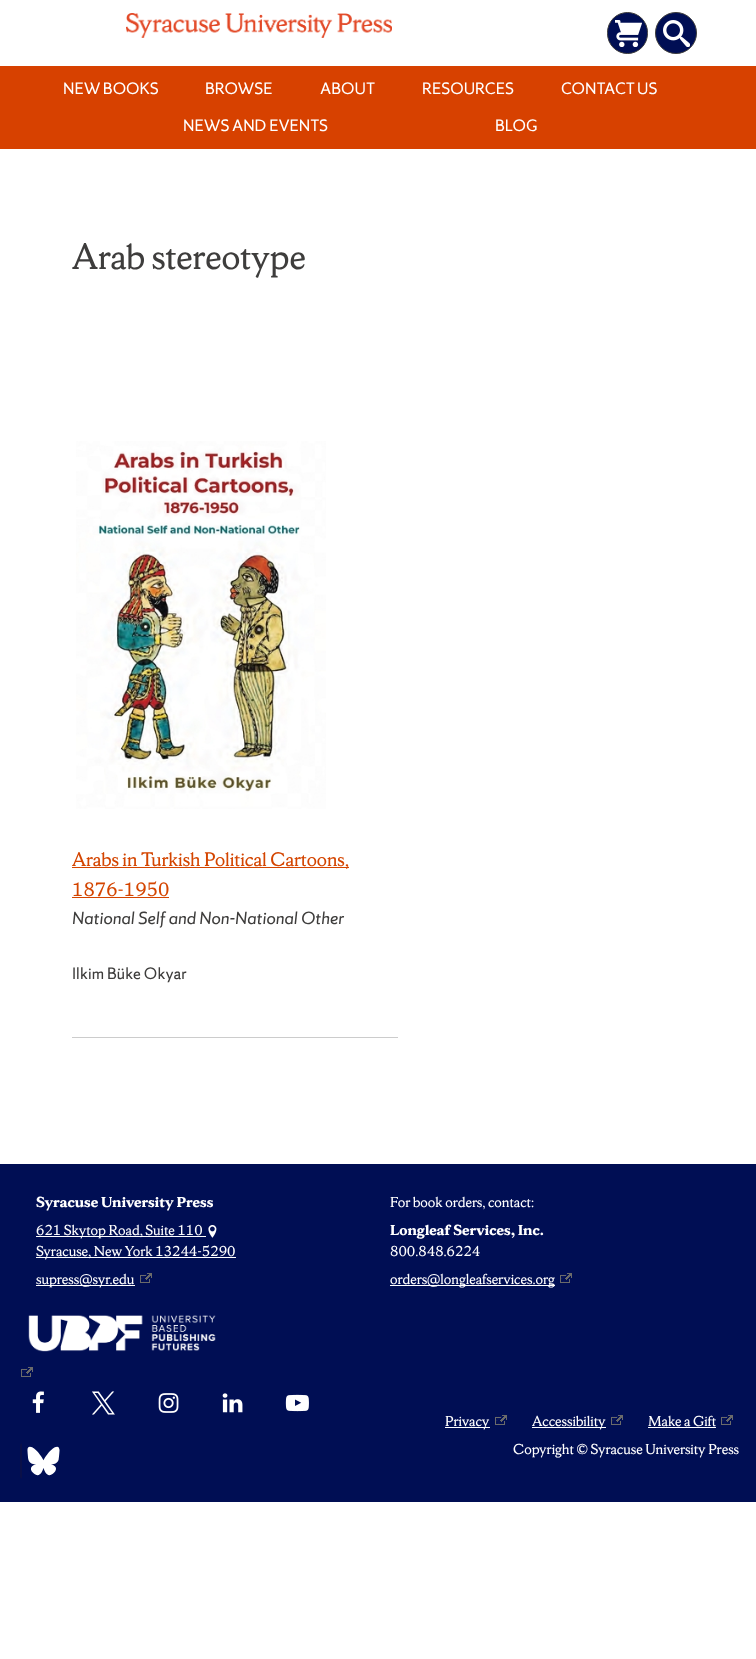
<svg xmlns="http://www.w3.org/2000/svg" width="756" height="1659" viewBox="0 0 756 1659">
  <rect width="100%" height="100%" fill="#ffffff"/>
  <image x="126" y="13" width="266" height="25" href="img1.png"/>
  <rect x="607.5" y="12.5" width="40" height="41" rx="20" fill="#000e54" stroke="#3e3d3c"/>
  <image x="615" y="20" width="27" height="27" href="img2.png"/>
  <circle cx="676" cy="33" r="20.5" fill="#000e54" stroke="#3e3d3c"/>
  <image x="663" y="20" width="27" height="27" href="img3.png"/>
  <rect x="0" y="66" width="756" height="83" fill="#d74100"/>
  <text x="63" y="94" font-family="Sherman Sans" font-size="14.5" fill="#ffffff">NEW BOOKS</text>
  <text x="205" y="94" font-family="Sherman Sans" font-size="14.5" fill="#ffffff">BROWSE</text>
  <text x="320" y="94" font-family="Sherman Sans" font-size="14.5" fill="#ffffff">ABOUT</text>
  <text x="422" y="94" font-family="Sherman Sans" font-size="14.5" fill="#ffffff">RESOURCES</text>
  <text x="561" y="94" font-family="Sherman Sans" font-size="14.5" fill="#ffffff">CONTACT US</text>
  <text x="183" y="131" font-family="Sherman Sans" font-size="14.5" fill="#ffffff">NEWS AND EVENTS</text>
  <text x="495" y="131" font-family="Sherman Sans" font-size="14.5" fill="#ffffff">BLOG</text>
  <text x="72" y="269" font-family="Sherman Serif" font-size="32" fill="#3e3d3c">Arab stereotype</text>
  <image x="76" y="441" width="250" height="368" href="img4.png"/>
  <rect x="72" y="867" width="277" height="1" fill="#d44500"/>
  <text x="72" y="866" font-family="Sherman Serif" font-size="17.25" fill="#d44500">Arabs in Turkish Political Cartoons,</text>
  <text x="72" y="896" font-family="Sherman Serif" font-size="17.25" fill="#d44500">1876-1950</text>
  <rect x="72" y="897" width="97" height="1" fill="#d44500"/>
  <text x="72" y="924" font-family="Sherman Sans" font-size="15.5" font-style="italic" fill="#3e3d3c">National Self and Non-National Other</text>
  <text x="72" y="979" font-family="Sherman Sans" font-size="14.5" fill="#3e3d3c">Ilkim Büke Okyar</text>
  <rect x="72" y="1037" width="326" height="1" fill="#cccccc"/>
  <rect x="0" y="1164" width="756" height="338" fill="#000e54"/>
  <text x="36" y="1207" font-family="Sherman Serif" font-size="12.75" font-weight="bold" fill="#ffffff">Syracuse University Press</text>
  <rect x="36" y="1236" width="170" height="1" fill="#ffffff"/>
  <text x="36" y="1235" font-family="Sherman Serif" font-size="12.75" fill="#ffffff">621 Skytop Road, Suite 110</text>
  <image x="208" y="1225" width="9" height="13" href="img5.png"/>
  <rect x="36" y="1257" width="200" height="1" fill="#ffffff"/>
  <text x="36" y="1256" font-family="Sherman Serif" font-size="12.75" fill="#ffffff">Syracuse, New York 13244-5290</text>
  <rect x="36" y="1285" width="99" height="1" fill="#ffffff"/>
  <text x="36" y="1284" font-family="Sherman Serif" font-size="12.75" fill="#ffffff">supress@syr.edu</text>
  <image x="140" y="1273" width="12" height="10" href="img6.png"/>
  <text x="390" y="1207" font-family="Sherman Serif" font-size="12.75" fill="#ffffff">For book orders, contact:</text>
  <text x="390" y="1235" font-family="Sherman Serif" font-size="12.75" font-weight="bold" fill="#ffffff">Longleaf Services, Inc.</text>
  <text x="390" y="1256" font-family="Sherman Serif" font-size="12.75" fill="#ffffff">800.848.6224</text>
  <rect x="390" y="1285" width="165" height="1" fill="#ffffff"/>
  <text x="390" y="1284" font-family="Sherman Serif" font-size="12.75" fill="#ffffff">orders@longleafservices.org</text>
  <image x="560" y="1273" width="12" height="10" href="img6.png"/>
  <image x="28" y="1315" width="188" height="37" href="img7.png"/>
  <image x="21" y="1367" width="12" height="10" href="img6.png"/>
  <image x="32" y="1391" width="12" height="22" href="img8.png"/>
  <image x="92" y="1391" width="23" height="24" href="img9.png"/>
  <image x="158" y="1393" width="21" height="20" href="img10.png"/>
  <image x="222" y="1393" width="21" height="20" href="img11.png"/>
  <image x="285" y="1394" width="24" height="18" href="img12.png"/>
  <image x="20" y="1443" width="40" height="36" href="img13.png"/>
  <rect x="445" y="1427" width="45" height="1" fill="#ffffff"/>
  <text x="445" y="1426" font-family="Sherman Serif" font-size="12.75" fill="#ffffff">Privacy</text>
  <image x="495" y="1415" width="12" height="10" href="img6.png"/>
  <rect x="532" y="1427" width="74" height="1" fill="#ffffff"/>
  <text x="532" y="1426" font-family="Sherman Serif" font-size="12.75" fill="#ffffff">Accessibility</text>
  <image x="611" y="1415" width="12" height="10" href="img6.png"/>
  <text x="648" y="1426" font-family="Sherman Serif" font-size="12.75" fill="#ffffff">Make a Gift</text>
  <rect x="648" y="1427" width="68" height="1" fill="#ffffff"/>
  <image x="721" y="1415" width="12" height="10" href="img6.png"/>
  <text x="513" y="1454" font-family="Sherman Serif" font-size="12.75" fill="#ffffff">Copyright © Syracuse University Press</text>
</svg>
